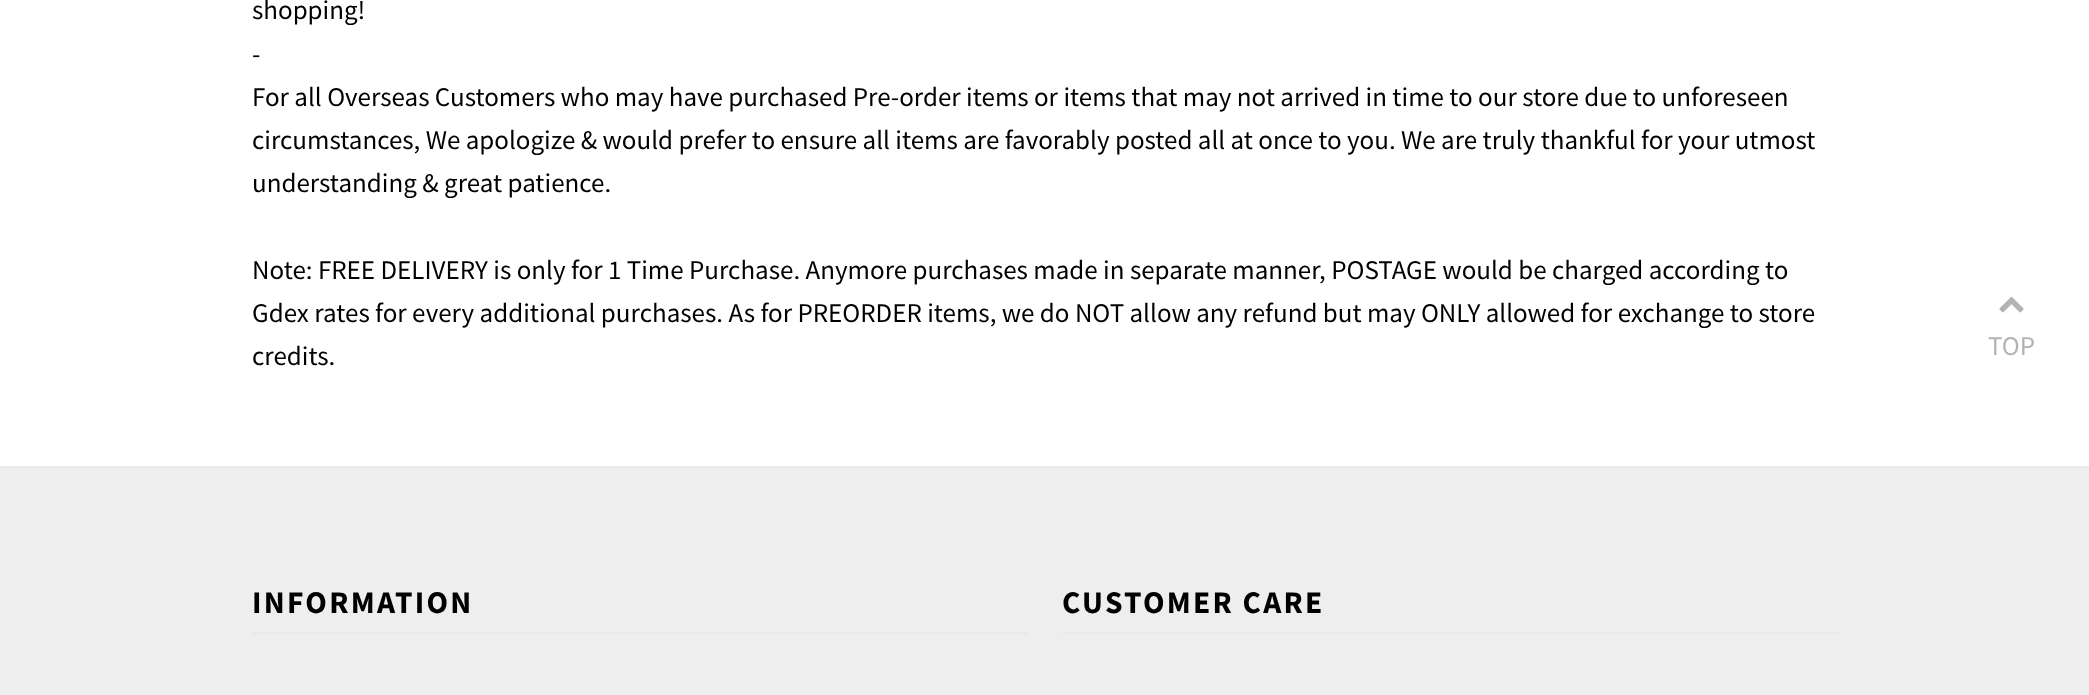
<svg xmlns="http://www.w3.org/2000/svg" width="2089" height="695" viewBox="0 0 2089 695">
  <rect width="100%" height="100%" fill="#ffffff"/>
  <text x="252" y="19" font-family="Source Sans Pro" font-size="27" fill="#000000">shopping!</text>
  <text x="252" y="63" font-family="Source Sans Pro" font-size="27" fill="#000000">-</text>
  <text x="252" y="106" font-family="Source Sans Pro" font-size="27" fill="#000000">For all Overseas Customers who may have purchased Pre-order items or items that may not arrived in time to our store due to unforeseen</text>
  <text x="252" y="149" font-family="Source Sans Pro" font-size="27" fill="#000000">circumstances, We apologize &amp; would prefer to ensure all items are favorably posted all at once to you. We are truly thankful for your utmost</text>
  <text x="252" y="192" font-family="Source Sans Pro" font-size="27" fill="#000000">understanding &amp; great patience.</text>
  <text x="252" y="279" font-family="Source Sans Pro" font-size="27" fill="#000000">Note: FREE DELIVERY is only for 1 Time Purchase. Anymore purchases made in separate manner, POSTAGE would be charged according to</text>
  <text x="252" y="322" font-family="Source Sans Pro" font-size="27" fill="#000000">Gdex rates for every additional purchases. As for PREORDER items, we do NOT allow any refund but may ONLY allowed for exchange to store</text>
  <text x="252" y="365" font-family="Source Sans Pro" font-size="27" fill="#000000">credits.</text>
  <rect x="0" y="468" width="2089" height="227" fill="#eeeeee"/>
  <rect x="0" y="466" width="2089" height="2" fill="#e9e9e9"/>
  <rect x="252" y="632" width="776" height="2" fill="#e9e9e9"/>
  <text x="252" y="613" font-family="Source Sans Pro" font-size="31.5" font-weight="bold" letter-spacing="2.25" fill="#000000">INFORMATION</text>
  <rect x="1062" y="632" width="776" height="2" fill="#e9e9e9"/>
  <text x="1062" y="613" font-family="Source Sans Pro" font-size="31.5" font-weight="bold" letter-spacing="2.25" fill="#000000">CUSTOMER CARE</text>
  <image x="1999" y="296" width="25" height="17" href="img1.png"/>
  <text x="1988" y="355" font-family="Source Sans Pro" font-size="27" fill="#b3b3b3">TOP</text>
</svg>
